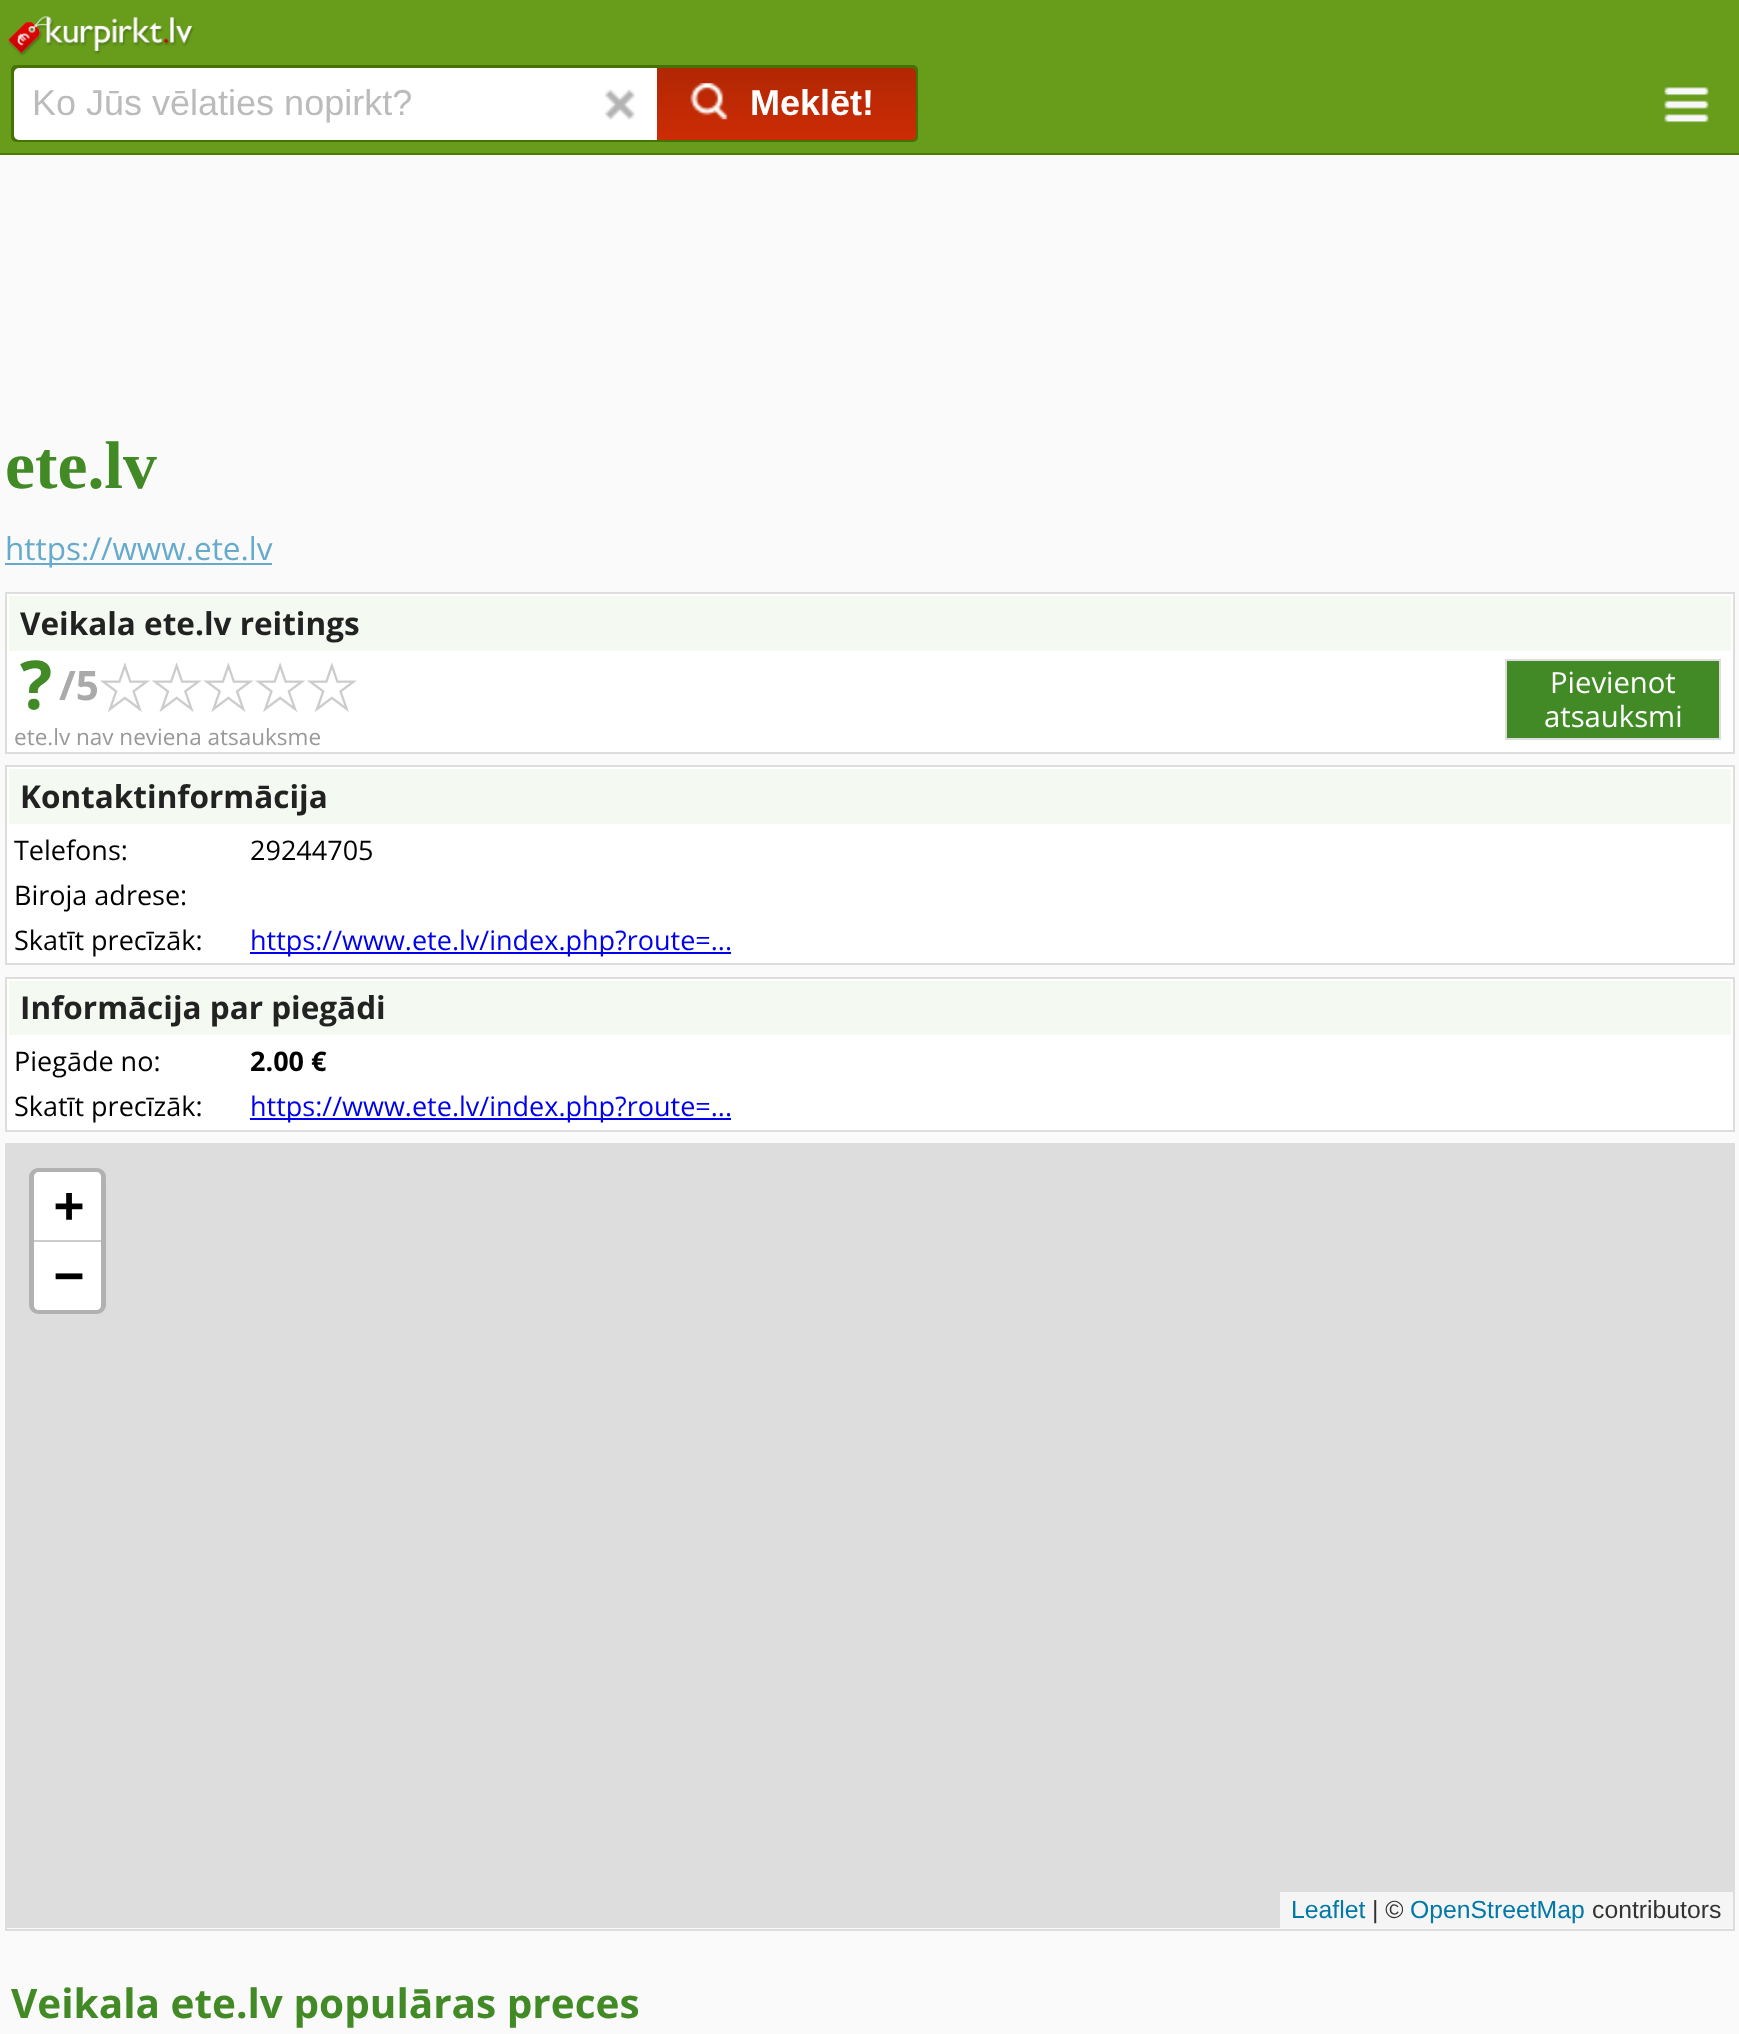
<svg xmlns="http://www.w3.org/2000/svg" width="1739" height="2034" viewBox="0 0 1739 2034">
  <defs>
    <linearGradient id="g1" gradientUnits="userSpaceOnUse" x1="786" y1="67" x2="786" y2="140"><stop offset="0" stop-color="#b12704"/><stop offset="1" stop-color="#cc2c04"/></linearGradient>
  </defs>
  <rect width="100%" height="100%" fill="#fafafa"/>
  <rect x="0" y="0" width="1739" height="153" fill="#679d1b"/>
  <image x="8" y="16" width="186" height="40" href="img1.png"/>
  <rect x="0" y="153" width="1739" height="2" fill="#4d7908"/>
  <rect x="12" y="66" width="905" height="75" rx="4" fill="#457205" stroke="#457205" stroke-width="2"/>
  <rect x="14" y="68" width="652" height="72" rx="5" fill="#ffffff"/>
  <text x="32" y="115" font-family="Liberation Sans" font-size="36" fill="#bbbbbb">Ko Jūs vēlaties nopirkt?</text>
  <image x="605" y="89" width="30" height="31" href="img2.png"/>
  <path d="M657 68H911C914 68 916 70 916 73V135C916 138 914 140 911 140H657Z" fill="url(#g1)"/>
  <image x="690" y="83" width="38" height="37" href="img3.png"/>
  <text x="750" y="115" font-family="Liberation Sans" font-size="36" font-weight="bold" fill="#ffffff">Meklēt!</text>
  <image x="1664" y="87" width="45" height="36" href="img4.png"/>
  <text x="5" y="488" font-family="Liberation Serif" font-size="67.5" font-weight="bold" fill="#428a25">ete.lv</text>
  <rect x="5" y="563" width="267" height="2" fill="#66aacc"/>
  <text x="5" y="560" font-family="Open Sans" font-size="31.5" fill="#66aacc">https://www.ete.lv</text>
  <rect x="7" y="653" width="1726" height="99" fill="#ffffff"/>
  <rect x="6" y="593" width="1728" height="160" fill="none" stroke="#dddddd" stroke-width="2"/>
  <rect x="8" y="595" width="1724" height="57" fill="#f4f9f1" stroke="#ffffff" stroke-width="2"/>
  <text x="20" y="635" font-family="Open Sans" font-size="31.5" font-weight="bold" fill="#222222">Veikala ete.lv reitings</text>
  <text x="20" y="709" font-family="Open Sans" font-size="67.5" font-weight="bold" letter-spacing="-4" fill="#428a25">?</text>
  <text x="59" y="700" font-family="Open Sans" font-size="40.5" font-weight="bold" fill="#aaaaaa">/5</text>
  <image x="100" y="662" width="50" height="50" href="img5.png"/>
  <image x="151" y="662" width="51" height="50" href="img6.png"/>
  <image x="203" y="662" width="51" height="50" href="img7.png"/>
  <image x="255" y="662" width="50" height="50" href="img8.png"/>
  <image x="307" y="662" width="50" height="50" href="img5.png"/>
  <text x="14" y="745" font-family="Open Sans" font-size="22.5" fill="#999999">ete.lv nav neviena atsauksme</text>
  <rect x="1506" y="660" width="214" height="79" fill="#428a25" stroke="#dddddd" stroke-width="2"/>
  <text x="1550" y="693" font-family="Open Sans" font-size="29.25" fill="#ffffff">Pievienot</text>
  <text x="1544" y="727" font-family="Open Sans" font-size="29.25" fill="#ffffff">atsauksmi</text>
  <rect x="7" y="826" width="1726" height="137" fill="#ffffff"/>
  <rect x="6" y="766" width="1728" height="198" fill="none" stroke="#dddddd" stroke-width="2"/>
  <rect x="8" y="768" width="1724" height="57" fill="#f4f9f1" stroke="#ffffff" stroke-width="2"/>
  <text x="20" y="808" font-family="Open Sans" font-size="31.5" font-weight="bold" fill="#222222">Kontaktinformācija</text>
  <text x="14" y="860" font-family="Open Sans" font-size="27" fill="#000000">Telefons:</text>
  <text x="250" y="860" font-family="Open Sans" font-size="27" fill="#000000">29244705</text>
  <text x="14" y="905" font-family="Open Sans" font-size="27" fill="#000000">Biroja adrese:</text>
  <text x="14" y="950" font-family="Open Sans" font-size="27" fill="#000000">Skatīt precīzāk:</text>
  <rect x="250" y="952" width="481" height="2" fill="#0000ee"/>
  <text x="250" y="950" font-family="Open Sans" font-size="27" fill="#0000ee">https://www.ete.lv/index.php?route=...</text>
  <rect x="7" y="1037" width="1726" height="93" fill="#ffffff"/>
  <rect x="6" y="978" width="1728" height="153" fill="none" stroke="#dddddd" stroke-width="2"/>
  <rect x="8" y="980" width="1724" height="56" fill="#f4f9f1" stroke="#ffffff" stroke-width="2"/>
  <text x="20" y="1019" font-family="Open Sans" font-size="31.5" font-weight="bold" fill="#222222">Informācija par piegādi</text>
  <text x="14" y="1071" font-family="Open Sans" font-size="27" fill="#000000">Piegāde no:</text>
  <text x="250" y="1071" font-family="Open Sans" font-size="27" font-weight="bold" fill="#000000">2.00 €</text>
  <text x="14" y="1116" font-family="Open Sans" font-size="27" fill="#000000">Skatīt precīzāk:</text>
  <rect x="250" y="1118" width="481" height="2" fill="#0000ee"/>
  <text x="250" y="1116" font-family="Open Sans" font-size="27" fill="#0000ee">https://www.ete.lv/index.php?route=...</text>
  <rect x="6" y="1144" width="1728" height="786" fill="none" stroke="#dddddd" stroke-width="2"/>
  <rect x="7" y="1145" width="1726" height="783" fill="#dddddd"/>
  <rect x="31.5" y="1170.5" width="72" height="141" rx="6.5" fill="none" stroke="#b1b1b1" stroke-width="5"/>
  <path d="M39 1172H96C99 1172 101 1174 101 1177V1242H34V1177C34 1174 36 1172 39 1172Z" fill="#ffffff"/>
  <rect x="34" y="1240" width="67" height="2" fill="#cccccc"/>
  <text x="54" y="1222" font-family="DejaVu Sans Mono" font-size="50" font-weight="bold" fill="#000000">+</text>
  <path d="M34 1242H101V1305C101 1308 99 1310 96 1310H39C36 1310 34 1308 34 1305Z" fill="#ffffff"/>
  <text x="54" y="1292" font-family="DejaVu Sans Mono" font-size="50" font-weight="bold" fill="#000000">−</text>
  <rect x="1280" y="1892" width="453" height="36" fill="#f5f5f5"/>
  <text x="1291" y="1918" font-family="Liberation Sans" font-size="24.75" fill="#0078a8">Leaflet</text>
  <text x="1372" y="1918" font-family="Liberation Sans" font-size="24.75" fill="#333333">| ©</text>
  <text x="1410" y="1918" font-family="Liberation Sans" font-size="24.75" fill="#0078a8">OpenStreetMap</text>
  <text x="1592" y="1918" font-family="Liberation Sans" font-size="24.75" fill="#333333">contributors</text>
  <text x="11" y="2018" font-family="Open Sans" font-size="40.5" font-weight="bold" fill="#428a25">Veikala ete.lv populāras preces</text>
</svg>
